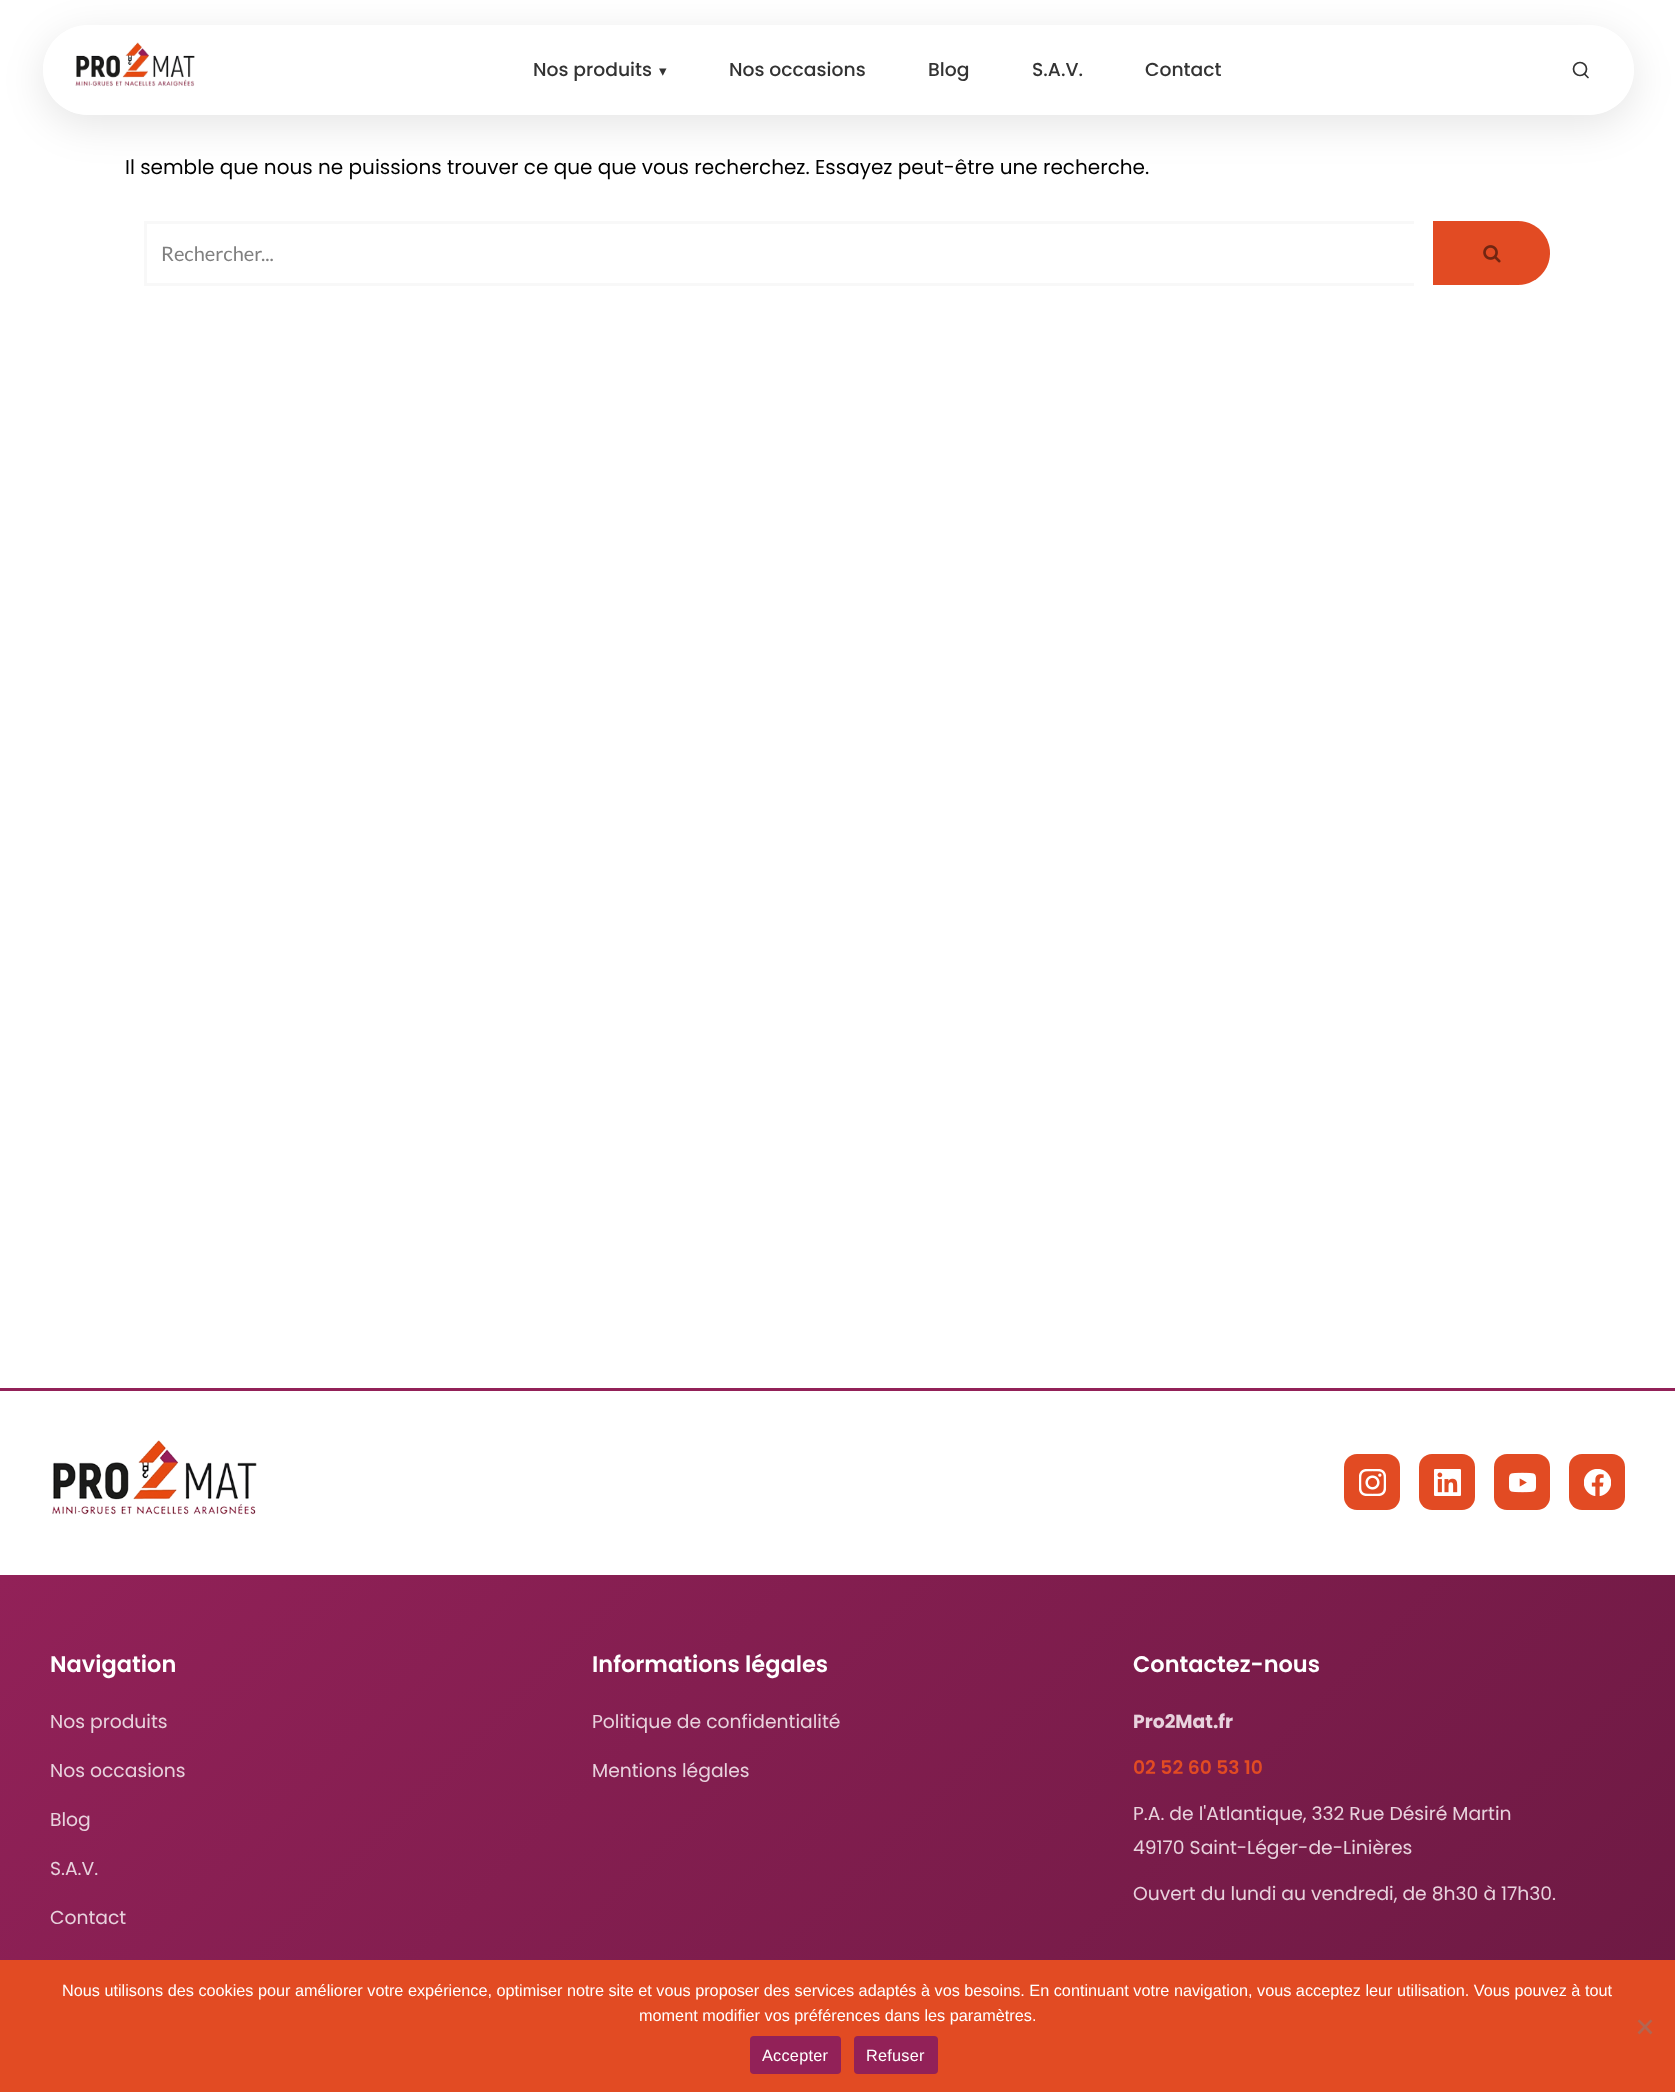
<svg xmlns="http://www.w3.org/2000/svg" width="1675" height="2092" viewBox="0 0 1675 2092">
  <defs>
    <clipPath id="clip1"><path d="M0 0H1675V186H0ZM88 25H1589C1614 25 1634 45 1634 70C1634 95 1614 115 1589 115H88C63 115 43 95 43 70C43 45 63 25 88 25Z" clip-rule="evenodd"/></clipPath>
    <filter id="blur1" x="-50%" y="-200%" width="200%" height="500%"><feGaussianBlur stdDeviation="20"/></filter>
    <linearGradient id="g1" gradientUnits="userSpaceOnUse" x1="277" y1="1298" x2="1398" y2="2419"><stop offset="0" stop-color="#922158"/><stop offset="1" stop-color="#6b1942"/></linearGradient>
  </defs>
  <rect width="100%" height="100%" fill="#ffffff"/>
  <g clip-path="url(#clip1)">
    <rect x="43" y="35" width="1591" height="90" rx="45" fill="#000000" fill-opacity="0.1" filter="url(#blur1)"/>
  </g>
  <rect x="43" y="25" width="1591" height="90" rx="45" fill="#ffffff" fill-opacity="0.7"/>
  <image x="75" y="42" width="120" height="45" href="img1.png"/>
  <text x="533" y="76" font-family="Poppins" font-size="18.75" font-weight="500" fill="#333333">Nos produits</text>
  <text x="659" y="76" font-family="DejaVu Sans" font-size="15" fill="#333333">▾</text>
  <text x="729" y="76" font-family="Poppins" font-size="18.75" font-weight="500" fill="#333333">Nos occasions</text>
  <text x="928" y="76" font-family="Poppins" font-size="18.75" font-weight="500" fill="#333333">Blog</text>
  <text x="1032" y="76" font-family="Poppins" font-size="18.75" font-weight="500" fill="#333333">S.A.V.</text>
  <text x="1145" y="76" font-family="Poppins" font-size="18.75" font-weight="500" fill="#333333">Contact</text>
  <circle cx="1580" cy="69" r="6.5" fill="none" stroke="#333333" stroke-width="1.7"/>
  <path d="M1588 77.5L1584.5 74" fill="none" stroke="#333333" stroke-width="1.7" stroke-linecap="round" stroke-linejoin="round"/>
  <text x="125" y="174" font-family="Poppins" font-size="20" fill="#000000">Il semble que nous ne puissions trouver ce que que vous recherchez. Essayez peut-être une recherche.</text>
  <rect x="144" y="221" width="1270" height="3" fill="#f8f8f8"/>
  <rect x="144" y="283" width="1270" height="3" fill="#f8f8f8"/>
  <rect x="144" y="221" width="3" height="64" fill="#f8f8f8"/>
  <text x="161" y="261" font-family="Lato" font-size="20" fill="#808080">Rechercher...</text>
  <path d="M1433 221H1518C1535.5 221 1550 235.5 1550 253C1550 270.5 1535.5 285 1518 285H1433Z" fill="#e24b23"/>
  <image x="1483" y="245" width="18" height="18" href="img2.png"/>
  <rect x="0" y="1388" width="1675" height="3" fill="#922158"/>
  <image x="52" y="1440" width="205" height="75" href="img3.png"/>
  <rect x="1344" y="1454" width="56" height="56" rx="13" fill="#e24b23"/>
  <image x="1359" y="1469" width="27" height="27" href="img4.png"/>
  <rect x="1419" y="1454" width="56" height="56" rx="13" fill="#e24b23"/>
  <image x="1434" y="1469" width="27" height="27" href="img5.png"/>
  <rect x="1494" y="1454" width="56" height="56" rx="13" fill="#e24b23"/>
  <image x="1509" y="1472" width="27" height="21" href="img6.png"/>
  <rect x="1569" y="1454" width="56" height="56" rx="13" fill="#e24b23"/>
  <image x="1584" y="1469" width="27" height="27" href="img7.png"/>
  <rect x="0" y="1575" width="1675" height="385" fill="url(#g1)"/>
  <text x="50" y="1672" font-family="Poppins" font-size="22.5" font-weight="600" fill="#ffffff">Navigation</text>
  <text x="50" y="1728" font-family="Poppins" font-size="18.75" fill="#e8d2dd">Nos produits</text>
  <text x="50" y="1777" font-family="Poppins" font-size="18.75" fill="#e8d2dd">Nos occasions</text>
  <text x="50" y="1826" font-family="Poppins" font-size="18.75" fill="#e8d2dd">Blog</text>
  <text x="50" y="1875" font-family="Poppins" font-size="18.75" fill="#e8d2dd">S.A.V.</text>
  <text x="50" y="1924" font-family="Poppins" font-size="18.75" fill="#e8d2dd">Contact</text>
  <text x="592" y="1672" font-family="Poppins" font-size="22.5" font-weight="600" fill="#ffffff">Informations légales</text>
  <text x="592" y="1728" font-family="Poppins" font-size="18.75" fill="#e8d2dd">Politique de confidentialité</text>
  <text x="592" y="1777" font-family="Poppins" font-size="18.75" fill="#e8d2dd">Mentions légales</text>
  <text x="1133" y="1672" font-family="Poppins" font-size="22.5" font-weight="600" fill="#ffffff">Contactez-nous</text>
  <text x="1133" y="1728" font-family="Poppins" font-size="18.75" font-weight="bold" fill="#e8d2dd">Pro2Mat.fr</text>
  <text x="1133" y="1774" font-family="Poppins" font-size="18.75" font-weight="600" fill="#e24b23">02 52 60 53 10</text>
  <text x="1133" y="1820" font-family="Poppins" font-size="18.75" fill="#e8d2dd">P.A. de l'Atlantique, 332 Rue Désiré Martin</text>
  <text x="1133" y="1854" font-family="Poppins" font-size="18.75" fill="#e8d2dd">49170 Saint-Léger-de-Linières</text>
  <text x="1133" y="1900" font-family="Poppins" font-size="18.75" fill="#e8d2dd">Ouvert du lundi au vendredi, de 8h30 à 17h30.</text>
  <rect x="0" y="1960" width="1675" height="132" fill="#e24b23"/>
  <text x="62" y="1996" font-family="Liberation Sans" font-size="16.25" fill="#ffffff">Nous utilisons des cookies pour améliorer votre expérience, optimiser notre site et vous proposer des services adaptés à vos besoins. En continuant votre navigation, vous acceptez leur utilisation. Vous pouvez à tout</text>
  <text x="639" y="2021" font-family="Liberation Sans" font-size="16.25" fill="#ffffff">moment modifier vos préférences dans les paramètres.</text>
  <path d="M1650.5 2019.5L1652.5 2021L1639.5 2034.5L1637.5 2032.5Z" fill="#b16652"/>
  <path d="M1637.5 2021L1639.5 2019.5L1652.5 2032.5L1650.5 2034.5Z" fill="#b16652"/>
  <rect x="750" y="2036" width="91" height="38" rx="4" fill="#922158"/>
  <text x="762" y="2061" font-family="Liberation Sans" font-size="16.25" letter-spacing="0.25" fill="#ffffff">Accepter</text>
  <rect x="854" y="2036" width="84" height="38" rx="4" fill="#922158"/>
  <text x="866" y="2061" font-family="Liberation Sans" font-size="16.25" letter-spacing="0.25" fill="#ffffff">Refuser</text>
</svg>
